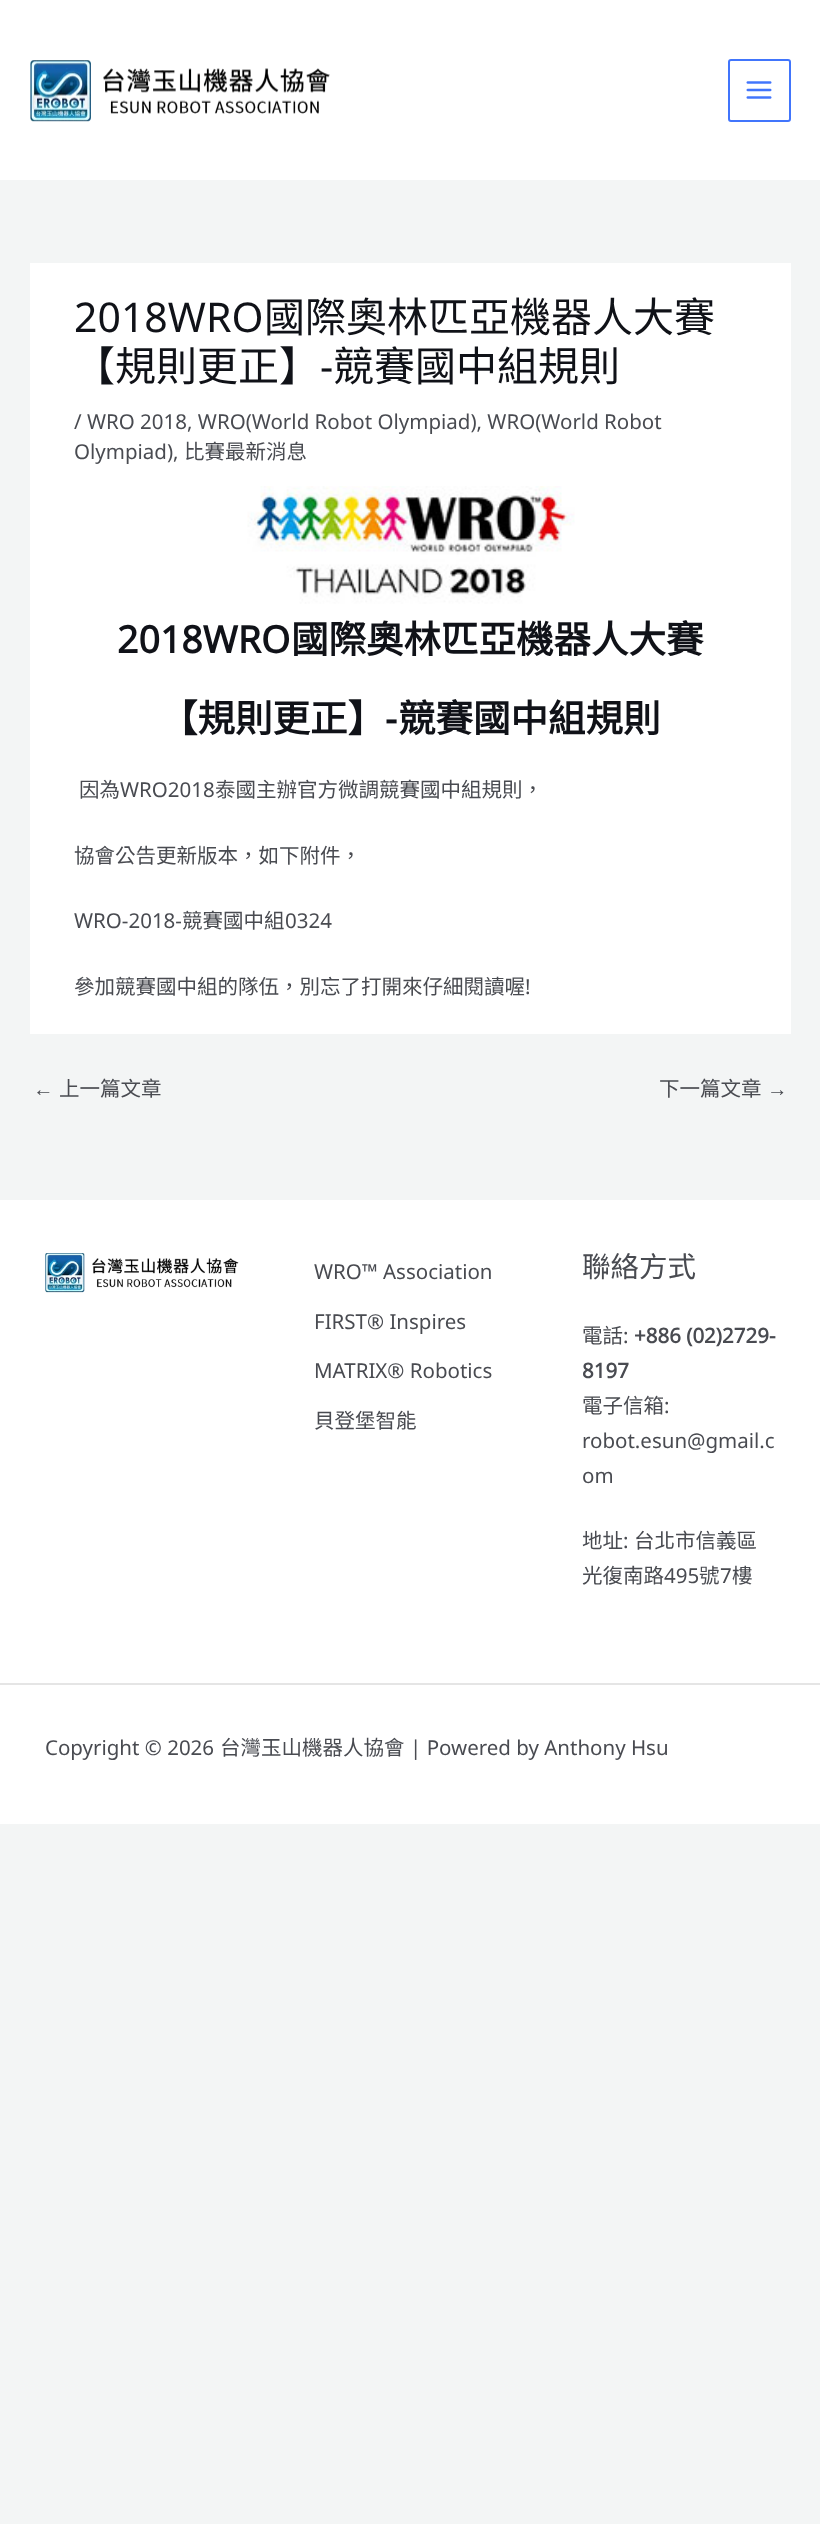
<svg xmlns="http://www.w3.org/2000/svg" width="820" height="2524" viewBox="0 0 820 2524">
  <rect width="100%" height="100%" fill="#f3f5f5"/>
  <rect x="0" y="0" width="820" height="180" fill="#ffffff"/>
  <image x="30" y="60" width="300" height="62" href="img1.png"/>
  <rect x="729" y="60" width="61" height="61" rx="2" fill="none" stroke="#4175fc" stroke-width="2"/>
  <image x="746" y="81" width="26" height="18" href="img2.png"/>
  <rect x="30" y="263" width="761" height="771" fill="#ffffff"/>
  <text x="74" y="332" font-family="Noto Sans" font-size="41" fill="#101218">2018WRO</text>
  <text x="264" y="332" font-family="Noto Sans CJK TC" font-size="41" fill="#101218">國際奧林匹亞機器人大賽</text>
  <text x="74" y="381" font-family="Noto Sans CJK TC" font-size="41" fill="#101218">【規則更正】</text>
  <text x="320" y="381" font-family="Noto Sans" font-size="41" fill="#101218">-</text>
  <text x="333" y="381" font-family="Noto Sans CJK TC" font-size="41" fill="#101218">競賽國中組規則</text>
  <text x="74" y="429" font-family="Noto Sans" font-size="20.5" fill="#494b51">/ WRO 2018, WRO(World Robot Olympiad), WRO(World Robot</text>
  <text x="74" y="459" font-family="Noto Sans" font-size="20.5" fill="#494b51">Olympiad),</text>
  <text x="184" y="459" font-family="Noto Sans CJK TC" font-size="20.5" fill="#494b51">比賽最新消息</text>
  <image x="247" y="486" width="328" height="118" href="img3.png"/>
  <text x="117" y="653" font-family="Noto Sans" font-size="37.5" font-weight="bold" fill="#101218">2018WRO</text>
  <text x="291" y="653" font-family="Noto Sans CJK TC" font-size="37.5" font-weight="bold" fill="#101218">國際奧林匹亞機器人大賽</text>
  <text x="160" y="732" font-family="Noto Sans CJK TC" font-size="37.5" font-weight="bold" fill="#101218">【規則更正】</text>
  <text x="385" y="732" font-family="Noto Sans" font-size="37.5" font-weight="bold" fill="#101218">-</text>
  <text x="398" y="732" font-family="Noto Sans CJK TC" font-size="37.5" font-weight="bold" fill="#101218">競賽國中組規則</text>
  <text x="79" y="797" font-family="Noto Sans CJK TC" font-size="20.5" fill="#494b51">因為</text>
  <text x="120" y="797" font-family="Noto Sans" font-size="20.5" fill="#494b51">WRO2018</text>
  <text x="215" y="797" font-family="Noto Sans CJK TC" font-size="20.5" fill="#494b51">泰國主辦官方微調競賽國中組規則，</text>
  <text x="74" y="863" font-family="Noto Sans CJK TC" font-size="20.5" fill="#494b51">協會公告更新版本，如下附件，</text>
  <text x="74" y="928" font-family="Noto Sans" font-size="20.5" fill="#494b51">WRO-2018-</text>
  <text x="182" y="928" font-family="Noto Sans CJK TC" font-size="20.5" fill="#494b51">競賽國中組</text>
  <text x="285" y="928" font-family="Noto Sans" font-size="20.5" fill="#494b51">0324</text>
  <text x="74" y="994" font-family="Noto Sans CJK TC" font-size="20.5" fill="#494b51">參加競賽國中組的隊伍，別忘了打開來仔細閱讀喔</text>
  <text x="525" y="994" font-family="Noto Sans" font-size="20.5" fill="#494b51">!</text>
  <text x="33" y="1096" font-family="Liberation Sans" font-size="20.5" fill="#494b51">←</text>
  <text x="59" y="1096" font-family="Noto Sans CJK TC" font-size="20.5" fill="#494b51">上一篇文章</text>
  <text x="659" y="1096" font-family="Noto Sans CJK TC" font-size="20.5" fill="#494b51">下一篇文章</text>
  <text x="767" y="1096" font-family="Liberation Sans" font-size="20.5" fill="#494b51">→</text>
  <rect x="0" y="1200" width="820" height="624" fill="#ffffff"/>
  <image x="45" y="1253" width="194" height="40" href="img4.png"/>
  <text x="314" y="1279" font-family="Noto Sans" font-size="20.5" fill="#494b51">WRO™ Association</text>
  <text x="314" y="1329" font-family="Noto Sans" font-size="20.5" fill="#494b51">FIRST® Inspires</text>
  <text x="314" y="1378" font-family="Noto Sans" font-size="20.5" fill="#494b51">MATRIX® Robotics</text>
  <text x="314" y="1428" font-family="Noto Sans CJK TC" font-size="20.5" fill="#494b51">貝登堡智能</text>
  <text x="582" y="1277" font-family="Noto Sans CJK TC" font-size="28.5" fill="#494b51">聯絡方式</text>
  <text x="582" y="1343" font-family="Noto Sans CJK TC" font-size="20.5" fill="#494b51">電話</text>
  <text x="623" y="1343" font-family="Noto Sans" font-size="20.5" fill="#494b51">:</text>
  <text x="634" y="1343" font-family="Noto Sans" font-size="20.5" font-weight="bold" fill="#494b51">+886 (02)2729-</text>
  <text x="582" y="1378" font-family="Noto Sans" font-size="20.5" font-weight="bold" fill="#494b51">8197</text>
  <text x="582" y="1413" font-family="Noto Sans CJK TC" font-size="20.5" fill="#494b51">電子信箱</text>
  <text x="664" y="1413" font-family="Noto Sans" font-size="20.5" fill="#494b51">:</text>
  <text x="582" y="1448" font-family="Noto Sans" font-size="20.5" fill="#494b51">robot.esun@gmail.c</text>
  <text x="582" y="1483" font-family="Noto Sans" font-size="20.5" fill="#494b51">om</text>
  <text x="582" y="1548" font-family="Noto Sans CJK TC" font-size="20.5" fill="#494b51">地址</text>
  <text x="623" y="1548" font-family="Noto Sans" font-size="20.5" fill="#494b51">:</text>
  <text x="634" y="1548" font-family="Noto Sans CJK TC" font-size="20.5" fill="#494b51">台北市信義區</text>
  <text x="582" y="1583" font-family="Noto Sans CJK TC" font-size="20.5" fill="#494b51">光復南路</text>
  <text x="664" y="1583" font-family="Noto Sans" font-size="20.5" fill="#494b51">495</text>
  <text x="699" y="1583" font-family="Noto Sans CJK TC" font-size="20.5" fill="#494b51">號</text>
  <text x="720" y="1583" font-family="Noto Sans" font-size="20.5" fill="#494b51">7</text>
  <text x="732" y="1583" font-family="Noto Sans CJK TC" font-size="20.5" fill="#494b51">樓</text>
  <rect x="0" y="1683" width="820" height="2" fill="#e5e5e5"/>
  <text x="45" y="1755" font-family="Noto Sans" font-size="20.5" fill="#494b51">Copyright © 2026</text>
  <text x="220" y="1755" font-family="Noto Sans CJK TC" font-size="20.5" fill="#494b51">台灣玉山機器人協會</text>
  <text x="410" y="1755" font-family="Noto Sans" font-size="20.5" fill="#494b51">| Powered by Anthony Hsu</text>
</svg>
